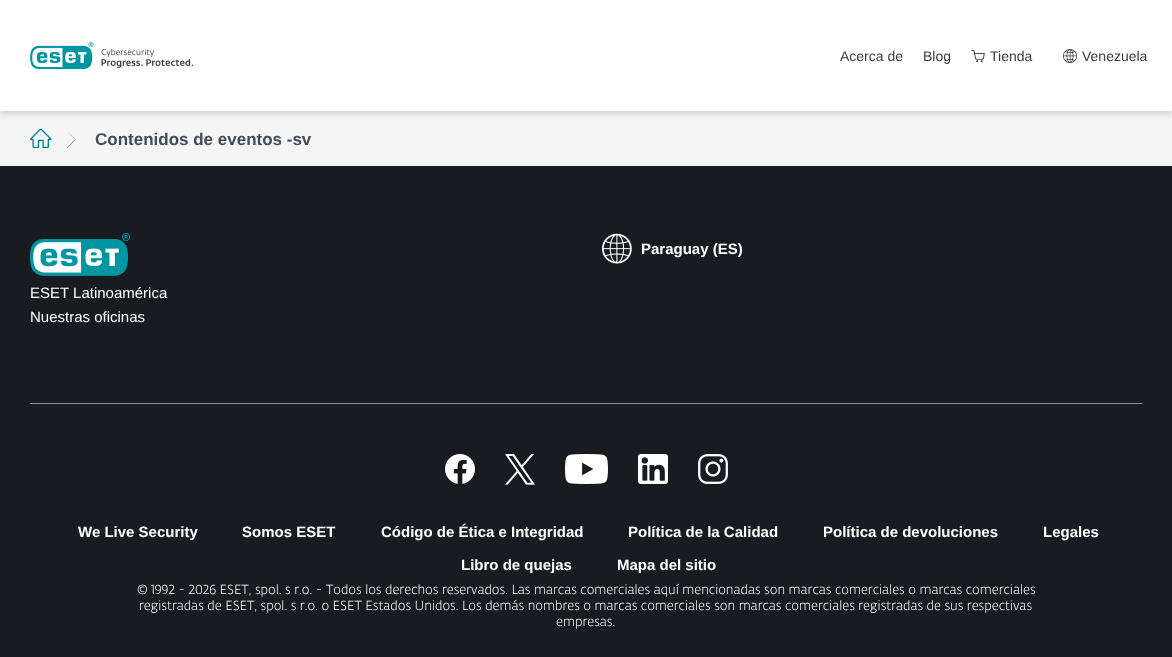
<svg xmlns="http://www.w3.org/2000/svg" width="1172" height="657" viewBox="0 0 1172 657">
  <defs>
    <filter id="blur1" x="-50%" y="-200%" width="200%" height="500%"><feGaussianBlur stdDeviation="3"/></filter>
  </defs>
  <rect width="100%" height="100%" fill="#181c20"/>
  <rect x="0" y="111" width="1172" height="55" fill="#f4f5f4"/>
  <rect x="0" y="3" width="1172" height="111" fill="#000000" fill-opacity="0.16" filter="url(#blur1)"/>
  <rect x="0" y="0" width="1172" height="111" fill="#ffffff"/>
  <image x="30" y="42" width="163" height="27" href="img1.png"/>
  <text x="840" y="61" font-family="Liberation Sans" font-size="14" fill="#3b3b3b">Acerca de</text>
  <text x="923" y="61" font-family="Liberation Sans" font-size="14" fill="#3b3b3b">Blog</text>
  <image x="971" y="50" width="14" height="13" href="img2.png"/>
  <text x="990" y="61" font-family="Liberation Sans" font-size="14" fill="#3b3b3b">Tienda</text>
  <image x="1063" y="49" width="14" height="14" href="img3.png"/>
  <text x="1082" y="61" font-family="Liberation Sans" font-size="14" fill="#3b3b3b">Venezuela</text>
  <image x="30" y="128" width="22" height="21" href="img4.png"/>
  <path d="M75.5 139.5L67 148V147.5L75 139.5L67 131.5Z" fill="#3b3b3b"/>
  <text x="95" y="145" font-family="Liberation Sans" font-size="17" font-weight="bold" fill="#424d56">Contenidos de eventos -sv</text>
  <image x="602" y="233" width="30" height="31" href="img5.png"/>
  <text x="641" y="254" font-family="Liberation Sans" font-size="15" font-weight="bold" fill="#ffffff">Paraguay (ES)</text>
  <image x="30" y="233" width="100" height="43" href="img6.png"/>
  <text x="30" y="298" font-family="Liberation Sans" font-size="15" fill="#ffffff">ESET Latinoamérica</text>
  <text x="30" y="322" font-family="Liberation Sans" font-size="15" fill="#ffffff">Nuestras oficinas</text>
  <rect x="30" y="403" width="1112" height="1" fill="#8c8e90"/>
  <image x="445" y="454" width="30" height="30" href="img7.png"/>
  <image x="505" y="454" width="30" height="31" href="img8.png"/>
  <image x="565" y="454" width="43" height="30" href="img9.png"/>
  <image x="638" y="454" width="30" height="30" href="img10.png"/>
  <image x="698" y="454" width="30" height="30" href="img11.png"/>
  <text x="78" y="537" font-family="Liberation Sans" font-size="15" font-weight="bold" fill="#ffffff">We Live Security</text>
  <text x="242" y="537" font-family="Liberation Sans" font-size="15" font-weight="bold" fill="#ffffff">Somos ESET</text>
  <text x="381" y="537" font-family="Liberation Sans" font-size="15" font-weight="bold" fill="#ffffff">Código de Ética e Integridad</text>
  <text x="628" y="537" font-family="Liberation Sans" font-size="15" font-weight="bold" fill="#ffffff">Política de la Calidad</text>
  <text x="823" y="537" font-family="Liberation Sans" font-size="15" font-weight="bold" fill="#ffffff">Política de devoluciones</text>
  <text x="1043" y="537" font-family="Liberation Sans" font-size="15" font-weight="bold" fill="#ffffff">Legales</text>
  <text x="461" y="570" font-family="Liberation Sans" font-size="15" font-weight="bold" fill="#ffffff">Libro de quejas</text>
  <text x="617" y="570" font-family="Liberation Sans" font-size="15" font-weight="bold" fill="#ffffff">Mapa del sitio</text>
  <text x="137" y="594" font-family="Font" font-size="13" font-weight="300" fill="#ffffff">© 1992 - 2026 ESET, spol. s r.o. - Todos los derechos reservados. Las marcas comerciales aquí mencionadas son marcas comerciales o marcas comerciales</text>
  <text x="139" y="610" font-family="Font" font-size="13" font-weight="300" fill="#ffffff">registradas de ESET, spol. s r.o. o ESET Estados Unidos. Los demás nombres o marcas comerciales son marcas comerciales registradas de sus respectivas</text>
  <text x="556" y="626" font-family="Font" font-size="13" font-weight="300" fill="#ffffff">empresas.</text>
</svg>
